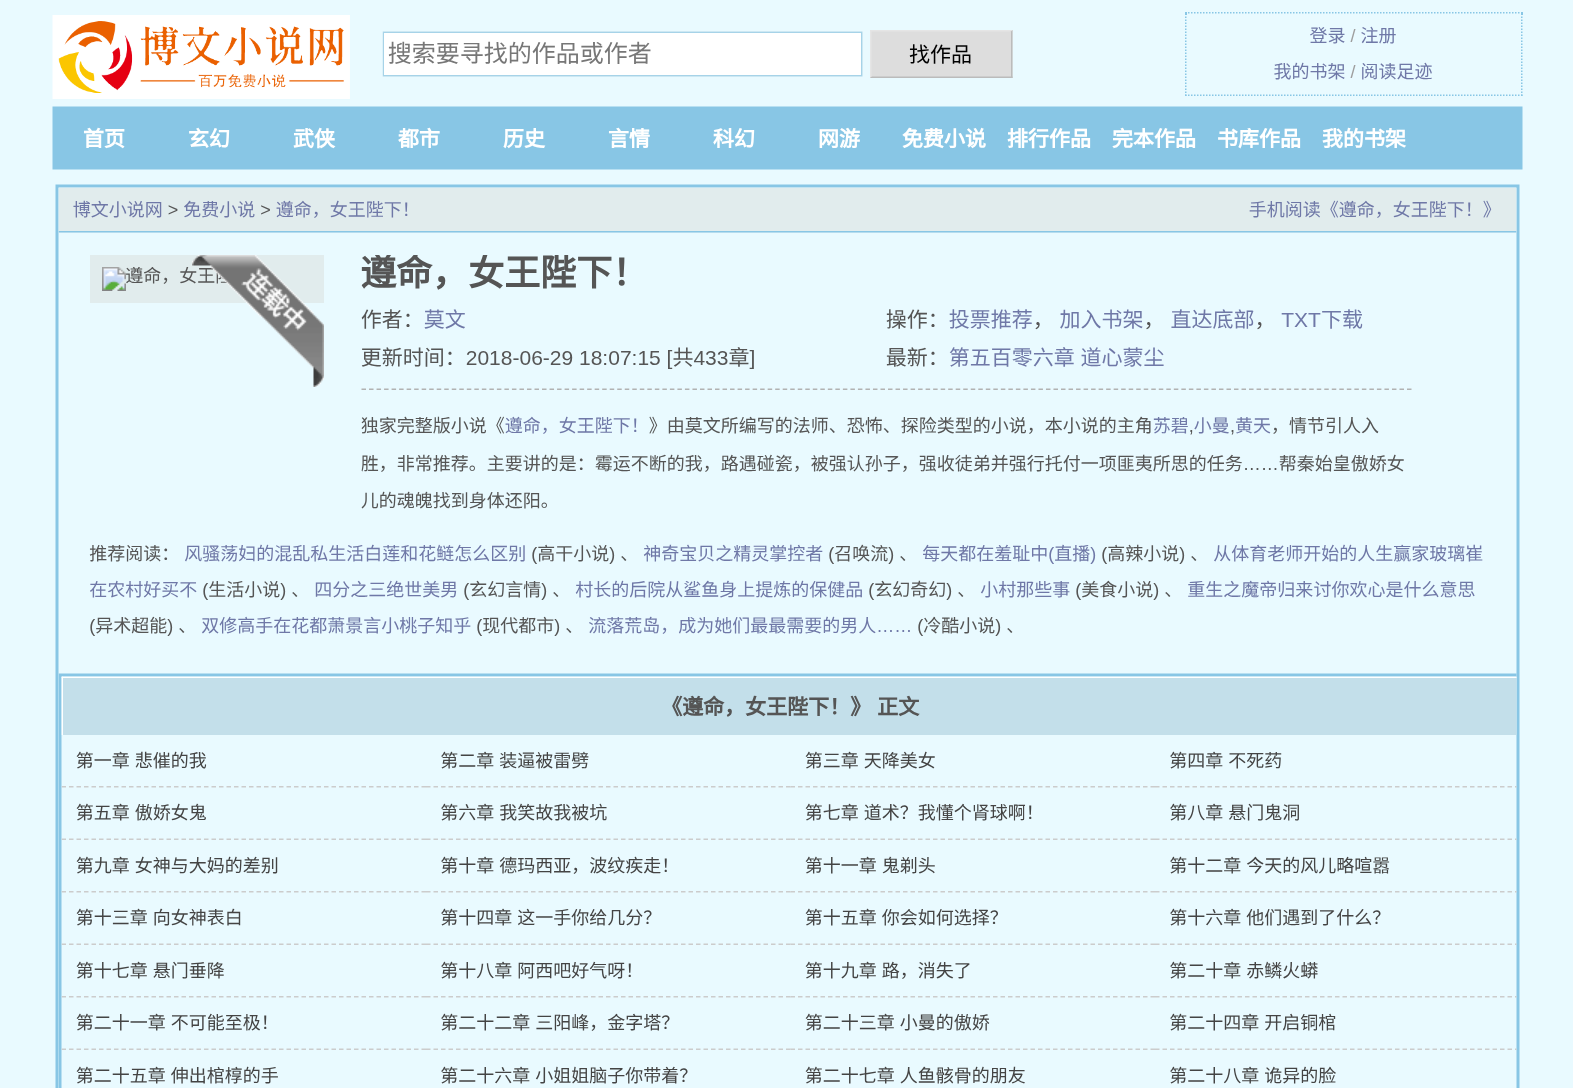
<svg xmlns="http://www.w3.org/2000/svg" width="1573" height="1088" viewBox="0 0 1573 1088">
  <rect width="100%" height="100%" fill="#ffffff"/>
  <image x="0" y="0" width="1573" height="1088" href="img1.png"/>
</svg>
